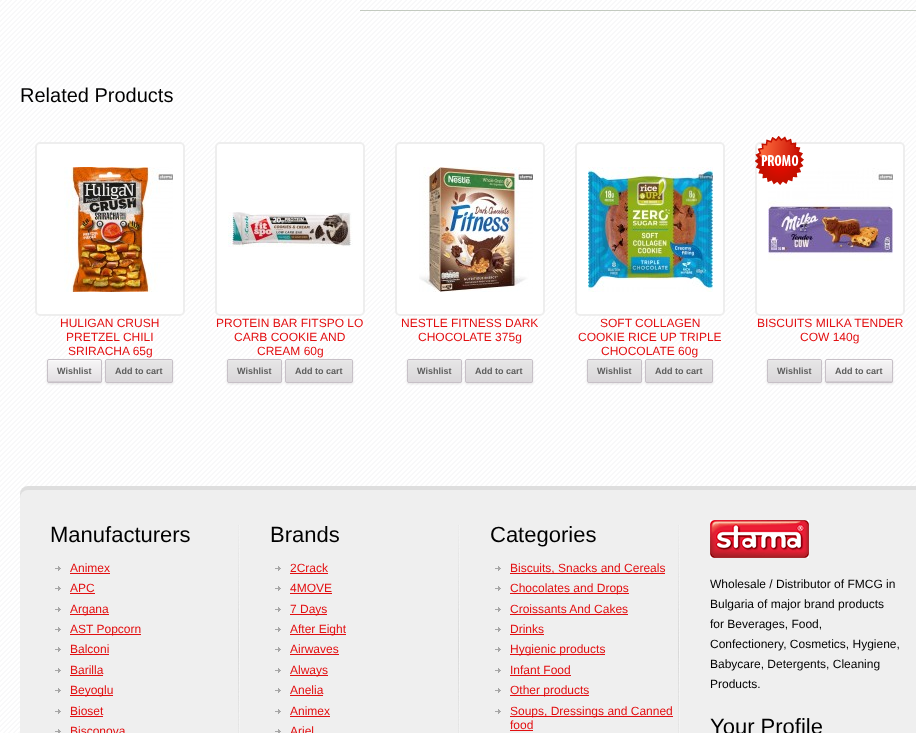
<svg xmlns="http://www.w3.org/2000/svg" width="916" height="733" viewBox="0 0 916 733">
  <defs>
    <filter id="blur1" x="-50%" y="-200%" width="200%" height="500%"><feGaussianBlur stdDeviation="1"/></filter>
    <filter id="blur2" x="-50%" y="-200%" width="200%" height="500%"><feGaussianBlur stdDeviation="0.5"/></filter>
  </defs>
  <rect width="100%" height="100%" fill="#ffffff"/>
  <image x="0" y="0" width="916" height="733" href="img1.png"/>
  <rect x="360" y="10" width="556" height="1" fill="#c3cac0"/>
  <text x="20" y="102" font-family="Liberation Sans" font-size="20" fill="#000000">Related Products</text>
  <rect x="36" y="143" width="148" height="172" rx="4" fill="#ffffff" stroke="#eeeeee" stroke-width="2"/>
  <image x="64" y="167" width="109" height="125" href="img2.png"/>
  <text x="60" y="327" font-family="Liberation Sans" font-size="12" fill="#e20f11">HULIGAN CRUSH</text>
  <text x="66" y="341" font-family="Liberation Sans" font-size="12" fill="#e20f11">PRETZEL CHILI</text>
  <text x="68" y="355" font-family="Liberation Sans" font-size="12" fill="#e20f11">SRIRACHA 65g</text>
  <rect x="47" y="360" width="55" height="24" rx="2" fill="#000000" fill-opacity="0.1" filter="url(#blur1)"/>
  <image x="48" y="360" width="54" height="23" href="img3.png"/>
  <path d="M49 361H101V362C101 358 95 360 92 360H58C54 360 48 358 48 362C48 361 48 361 49 361Z" fill="#fbfafb"/>
  <path d="M48 380C48 384 54 382 58 382H92C95 382 101 384 101 380C101 381 101 381 100 381H48Z" fill="#d2ced2"/>
  <rect x="47.5" y="359.5" width="54" height="23" rx="1.5" fill="none" stroke="#c7c0c7"/>
  <rect x="105" y="360" width="68" height="24" rx="2" fill="#000000" fill-opacity="0.1" filter="url(#blur1)"/>
  <image x="106" y="360" width="67" height="23" href="img4.png"/>
  <text x="57" y="374" font-family="Liberation Sans" font-size="9" font-weight="bold" fill="#5e5e5e">Wishlist</text>
  <path d="M107 360C105 360 106 375 106 378C106 385 107 382 118 382H171C173 382 172 373 172 371C172 369 173 360 171 360Z" fill="#ffffff" fill-opacity="0.3"/>
  <path d="M107 360C105 360 106 375 106 378C106 385 107 382 118 382H171C173 382 172 373 172 371C172 369 173 360 171 360Z" fill="#000000" fill-opacity="0.07"/>
  <rect x="105.5" y="359.5" width="67" height="23" rx="1.5" fill="none" stroke="#c7c0c7"/>
  <text x="115" y="374" font-family="Liberation Sans" font-size="9" font-weight="bold" fill="#5e5e5e">Add to cart</text>
  <rect x="216" y="143" width="148" height="172" rx="4" fill="#ffffff" stroke="#eeeeee" stroke-width="2"/>
  <image x="228" y="212" width="125" height="35" href="img5.png"/>
  <text x="216" y="327" font-family="Liberation Sans" font-size="12" fill="#e20f11">PROTEIN BAR FITSPO LO</text>
  <text x="234" y="341" font-family="Liberation Sans" font-size="12" fill="#e20f11">CARB COOKIE AND</text>
  <text x="257" y="355" font-family="Liberation Sans" font-size="12" fill="#e20f11">CREAM 60g</text>
  <rect x="227" y="360" width="55" height="24" rx="2" fill="#000000" fill-opacity="0.1" filter="url(#blur1)"/>
  <image x="228" y="360" width="54" height="23" href="img3.png"/>
  <path d="M229 360C227 360 228 369 228 371C228 373 227 382 229 382H272C281 382 281 384 281 378C281 375 282 360 280 360Z" fill="#ffffff" fill-opacity="0.3"/>
  <path d="M229 360C227 360 228 369 228 371C228 373 227 382 229 382H272C281 382 281 384 281 378C281 375 282 360 280 360Z" fill="#000000" fill-opacity="0.07"/>
  <rect x="227.5" y="359.5" width="54" height="23" rx="1.5" fill="none" stroke="#c7c0c7"/>
  <rect x="285" y="360" width="68" height="24" rx="2" fill="#000000" fill-opacity="0.1" filter="url(#blur1)"/>
  <image x="286" y="360" width="67" height="23" href="img4.png"/>
  <text x="237" y="374" font-family="Liberation Sans" font-size="9" font-weight="bold" fill="#5e5e5e">Wishlist</text>
  <path d="M287 360C285 360 286 375 286 378C286 385 287 382 298 382H351C353 382 352 373 352 371C352 369 353 360 351 360Z" fill="#ffffff" fill-opacity="0.3"/>
  <path d="M287 360C285 360 286 375 286 378C286 385 287 382 298 382H351C353 382 352 373 352 371C352 369 353 360 351 360Z" fill="#000000" fill-opacity="0.07"/>
  <rect x="285.5" y="359.5" width="67" height="23" rx="1.5" fill="none" stroke="#c7c0c7"/>
  <text x="295" y="374" font-family="Liberation Sans" font-size="9" font-weight="bold" fill="#5e5e5e">Add to cart</text>
  <rect x="396" y="143" width="148" height="172" rx="4" fill="#ffffff" stroke="#eeeeee" stroke-width="2"/>
  <image x="419" y="167" width="114" height="125" href="img6.png"/>
  <text x="401" y="327" font-family="Liberation Sans" font-size="12" fill="#e20f11">NESTLE FITNESS DARK</text>
  <text x="418" y="341" font-family="Liberation Sans" font-size="12" fill="#e20f11">CHOCOLATE 375g</text>
  <rect x="407" y="360" width="55" height="24" rx="2" fill="#000000" fill-opacity="0.1" filter="url(#blur1)"/>
  <image x="408" y="360" width="54" height="23" href="img3.png"/>
  <path d="M409 360C407 360 408 375 408 378C408 384 408 382 418 382H460C462 382 461 373 461 371C461 369 462 360 460 360Z" fill="#ffffff" fill-opacity="0.3"/>
  <path d="M409 360C407 360 408 375 408 378C408 384 408 382 418 382H460C462 382 461 373 461 371C461 369 462 360 460 360Z" fill="#000000" fill-opacity="0.07"/>
  <rect x="407.5" y="359.5" width="54" height="23" rx="1.5" fill="none" stroke="#c7c0c7"/>
  <rect x="465" y="360" width="68" height="24" rx="2" fill="#000000" fill-opacity="0.1" filter="url(#blur1)"/>
  <image x="466" y="360" width="67" height="23" href="img4.png"/>
  <text x="417" y="374" font-family="Liberation Sans" font-size="9" font-weight="bold" fill="#5e5e5e">Wishlist</text>
  <path d="M467 360C465 360 466 375 466 378C466 385 467 382 478 382H531C533 382 532 373 532 371C532 369 533 360 531 360Z" fill="#ffffff" fill-opacity="0.3"/>
  <path d="M467 360C465 360 466 375 466 378C466 385 467 382 478 382H531C533 382 532 373 532 371C532 369 533 360 531 360Z" fill="#000000" fill-opacity="0.07"/>
  <rect x="465.5" y="359.5" width="67" height="23" rx="1.5" fill="none" stroke="#c7c0c7"/>
  <text x="475" y="374" font-family="Liberation Sans" font-size="9" font-weight="bold" fill="#5e5e5e">Add to cart</text>
  <rect x="576" y="143" width="148" height="172" rx="4" fill="#ffffff" stroke="#eeeeee" stroke-width="2"/>
  <image x="588" y="167" width="125" height="125" href="img7.png"/>
  <text x="600" y="327" font-family="Liberation Sans" font-size="12" fill="#e20f11">SOFT COLLAGEN</text>
  <text x="578" y="341" font-family="Liberation Sans" font-size="12" fill="#e20f11">COOKIE RICE UP TRIPLE</text>
  <text x="601" y="355" font-family="Liberation Sans" font-size="12" fill="#e20f11">CHOCOLATE 60g</text>
  <rect x="587" y="360" width="55" height="24" rx="2" fill="#000000" fill-opacity="0.1" filter="url(#blur1)"/>
  <image x="588" y="360" width="54" height="23" href="img3.png"/>
  <path d="M589 360C587 360 588 369 588 371C588 373 587 382 589 382H632C641 382 641 384 641 378C641 375 642 360 640 360Z" fill="#ffffff" fill-opacity="0.3"/>
  <path d="M589 360C587 360 588 369 588 371C588 373 587 382 589 382H632C641 382 641 384 641 378C641 375 642 360 640 360Z" fill="#000000" fill-opacity="0.07"/>
  <rect x="587.5" y="359.5" width="54" height="23" rx="1.5" fill="none" stroke="#c7c0c7"/>
  <rect x="645" y="360" width="68" height="24" rx="2" fill="#000000" fill-opacity="0.1" filter="url(#blur1)"/>
  <image x="646" y="360" width="67" height="23" href="img4.png"/>
  <text x="597" y="374" font-family="Liberation Sans" font-size="9" font-weight="bold" fill="#5e5e5e">Wishlist</text>
  <path d="M647 360C645 360 646 375 646 378C646 385 647 382 658 382H711C713 382 712 373 712 371C712 369 713 360 711 360Z" fill="#ffffff" fill-opacity="0.3"/>
  <path d="M647 360C645 360 646 375 646 378C646 385 647 382 658 382H711C713 382 712 373 712 371C712 369 713 360 711 360Z" fill="#000000" fill-opacity="0.07"/>
  <rect x="645.5" y="359.5" width="67" height="23" rx="1.5" fill="none" stroke="#c7c0c7"/>
  <text x="655" y="374" font-family="Liberation Sans" font-size="9" font-weight="bold" fill="#5e5e5e">Add to cart</text>
  <rect x="756" y="143" width="148" height="172" rx="4" fill="#ffffff" stroke="#eeeeee" stroke-width="2"/>
  <image x="768" y="168" width="125" height="93" href="img9.png"/>
  <image x="755" y="136" width="49" height="49" href="img8.png"/>
  <text x="757" y="327" font-family="Liberation Sans" font-size="12" fill="#e20f11">BISCUITS MILKA TENDER</text>
  <text x="800" y="341" font-family="Liberation Sans" font-size="12" fill="#e20f11">COW 140g</text>
  <rect x="767" y="360" width="55" height="24" rx="2" fill="#000000" fill-opacity="0.1" filter="url(#blur1)"/>
  <image x="768" y="360" width="54" height="23" href="img3.png"/>
  <path d="M769 360C767 360 768 369 768 371C768 373 767 382 769 382H812C821 382 821 384 821 378C821 375 822 360 820 360Z" fill="#ffffff" fill-opacity="0.3"/>
  <path d="M769 360C767 360 768 369 768 371C768 373 767 382 769 382H812C821 382 821 384 821 378C821 375 822 360 820 360Z" fill="#000000" fill-opacity="0.07"/>
  <rect x="767.5" y="359.5" width="54" height="23" rx="1.5" fill="none" stroke="#c7c0c7"/>
  <rect x="825" y="360" width="68" height="24" rx="2" fill="#000000" fill-opacity="0.1" filter="url(#blur1)"/>
  <image x="826" y="360" width="67" height="23" href="img4.png"/>
  <text x="777" y="374" font-family="Liberation Sans" font-size="9" font-weight="bold" fill="#5e5e5e">Wishlist</text>
  <path d="M827 361H891C892 361 892 361 892 362C892 357 884 360 880 360H838C834 360 826 357 826 362C826 361 826 361 827 361Z" fill="#ffffff" fill-opacity="0.3"/>
  <path d="M826 380C826 385 834 382 838 382H880C884 382 892 385 892 380C892 381 892 381 891 381H827C826 381 826 381 826 380Z" fill="#d2ced2"/>
  <rect x="825.5" y="359.5" width="67" height="23" rx="1.5" fill="none" stroke="#c7c0c7"/>
  <text x="835" y="374" font-family="Liberation Sans" font-size="9" font-weight="bold" fill="#5e5e5e">Add to cart</text>
  <rect x="20" y="486" width="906" height="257" rx="8" fill="#dedede" filter="url(#blur2)"/>
  <rect x="20" y="490" width="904" height="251" rx="8" fill="#efefef"/>
  <image x="238" y="525" width="2" height="208" href="img10.png"/>
  <text x="50" y="542" font-family="Liberation Sans" font-size="22" fill="#000000">Manufacturers</text>
  <image x="55" y="566" width="6" height="5" href="img11.png"/>
  <text x="70" y="572" font-family="Liberation Sans" font-size="12" fill="#e20f11">Animex</text>
  <rect x="70" y="573" width="40" height="1" fill="#e20f11"/>
  <image x="55" y="586" width="6" height="5" href="img11.png"/>
  <text x="70" y="592" font-family="Liberation Sans" font-size="12" fill="#e20f11">APC</text>
  <rect x="70" y="593" width="25" height="1" fill="#e20f11"/>
  <image x="55" y="607" width="6" height="5" href="img11.png"/>
  <rect x="70" y="614" width="39" height="1" fill="#e20f11"/>
  <text x="70" y="613" font-family="Liberation Sans" font-size="12" fill="#e20f11">Argana</text>
  <image x="55" y="627" width="6" height="5" href="img11.png"/>
  <rect x="70" y="634" width="71" height="1" fill="#e20f11"/>
  <text x="70" y="633" font-family="Liberation Sans" font-size="12" fill="#e20f11">AST Popcorn</text>
  <image x="55" y="647" width="6" height="5" href="img11.png"/>
  <text x="70" y="653" font-family="Liberation Sans" font-size="12" fill="#e20f11">Balconi</text>
  <rect x="70" y="654" width="39" height="1" fill="#e20f11"/>
  <image x="55" y="668" width="6" height="5" href="img11.png"/>
  <text x="70" y="674" font-family="Liberation Sans" font-size="12" fill="#e20f11">Barilla</text>
  <rect x="70" y="675" width="33" height="1" fill="#e20f11"/>
  <image x="55" y="688" width="6" height="5" href="img11.png"/>
  <rect x="70" y="695" width="43" height="1" fill="#e20f11"/>
  <text x="70" y="694" font-family="Liberation Sans" font-size="12" fill="#e20f11">Beyoglu</text>
  <image x="55" y="709" width="6" height="5" href="img11.png"/>
  <text x="70" y="715" font-family="Liberation Sans" font-size="12" fill="#e20f11">Bioset</text>
  <rect x="70" y="716" width="33" height="1" fill="#e20f11"/>
  <image x="55" y="729" width="6" height="4" href="img12.png"/>
  <text x="70" y="735" font-family="Liberation Sans" font-size="12" fill="#e20f11">Bisconova</text>
  <image x="458" y="525" width="2" height="208" href="img10.png"/>
  <text x="270" y="542" font-family="Liberation Sans" font-size="22" fill="#000000">Brands</text>
  <image x="275" y="566" width="6" height="5" href="img11.png"/>
  <text x="290" y="572" font-family="Liberation Sans" font-size="12" fill="#e20f11">2Crack</text>
  <rect x="290" y="573" width="38" height="1" fill="#e20f11"/>
  <image x="275" y="586" width="6" height="5" href="img11.png"/>
  <text x="290" y="592" font-family="Liberation Sans" font-size="12" fill="#e20f11">4MOVE</text>
  <rect x="290" y="593" width="42" height="1" fill="#e20f11"/>
  <image x="275" y="607" width="6" height="5" href="img11.png"/>
  <rect x="290" y="614" width="37" height="1" fill="#e20f11"/>
  <text x="290" y="613" font-family="Liberation Sans" font-size="12" fill="#e20f11">7 Days</text>
  <image x="275" y="627" width="6" height="5" href="img11.png"/>
  <rect x="290" y="634" width="56" height="1" fill="#e20f11"/>
  <text x="290" y="633" font-family="Liberation Sans" font-size="12" fill="#e20f11">After Eight</text>
  <image x="275" y="647" width="6" height="5" href="img11.png"/>
  <text x="290" y="653" font-family="Liberation Sans" font-size="12" fill="#e20f11">Airwaves</text>
  <rect x="290" y="654" width="49" height="1" fill="#e20f11"/>
  <image x="275" y="668" width="6" height="5" href="img11.png"/>
  <rect x="290" y="675" width="38" height="1" fill="#e20f11"/>
  <text x="290" y="674" font-family="Liberation Sans" font-size="12" fill="#e20f11">Always</text>
  <image x="275" y="688" width="6" height="5" href="img11.png"/>
  <text x="290" y="694" font-family="Liberation Sans" font-size="12" fill="#e20f11">Anelia</text>
  <rect x="290" y="695" width="33" height="1" fill="#e20f11"/>
  <image x="275" y="709" width="6" height="5" href="img11.png"/>
  <text x="290" y="715" font-family="Liberation Sans" font-size="12" fill="#e20f11">Animex</text>
  <rect x="290" y="716" width="40" height="1" fill="#e20f11"/>
  <image x="275" y="729" width="6" height="4" href="img12.png"/>
  <text x="290" y="735" font-family="Liberation Sans" font-size="12" fill="#e20f11">Ariel</text>
  <image x="678" y="525" width="2" height="208" href="img10.png"/>
  <text x="490" y="542" font-family="Liberation Sans" font-size="22" fill="#000000">Categories</text>
  <image x="495" y="566" width="6" height="5" href="img11.png"/>
  <rect x="510" y="573" width="155" height="1" fill="#e20f11"/>
  <text x="510" y="572" font-family="Liberation Sans" font-size="12" fill="#e20f11">Biscuits, Snacks and Cereals</text>
  <image x="495" y="586" width="6" height="5" href="img11.png"/>
  <rect x="510" y="593" width="119" height="1" fill="#e20f11"/>
  <text x="510" y="592" font-family="Liberation Sans" font-size="12" fill="#e20f11">Chocolates and Drops</text>
  <image x="495" y="607" width="6" height="5" href="img11.png"/>
  <text x="510" y="613" font-family="Liberation Sans" font-size="12" fill="#e20f11">Croissants And Cakes</text>
  <rect x="510" y="614" width="118" height="1" fill="#e20f11"/>
  <image x="495" y="627" width="6" height="5" href="img11.png"/>
  <text x="510" y="633" font-family="Liberation Sans" font-size="12" fill="#e20f11">Drinks</text>
  <rect x="510" y="634" width="34" height="1" fill="#e20f11"/>
  <image x="495" y="647" width="6" height="5" href="img11.png"/>
  <rect x="510" y="654" width="95" height="1" fill="#e20f11"/>
  <text x="510" y="653" font-family="Liberation Sans" font-size="12" fill="#e20f11">Hygienic products</text>
  <image x="495" y="668" width="6" height="5" href="img11.png"/>
  <text x="510" y="674" font-family="Liberation Sans" font-size="12" fill="#e20f11">Infant Food</text>
  <rect x="510" y="675" width="61" height="1" fill="#e20f11"/>
  <image x="495" y="688" width="6" height="5" href="img11.png"/>
  <rect x="510" y="695" width="79" height="1" fill="#e20f11"/>
  <text x="510" y="694" font-family="Liberation Sans" font-size="12" fill="#e20f11">Other products</text>
  <image x="495" y="709" width="6" height="5" href="img11.png"/>
  <rect x="510" y="716" width="163" height="1" fill="#e20f11"/>
  <text x="510" y="715" font-family="Liberation Sans" font-size="12" fill="#e20f11">Soups, Dressings and Canned</text>
  <text x="510" y="729" font-family="Liberation Sans" font-size="12" fill="#e20f11">food</text>
  <rect x="510" y="730" width="23" height="1" fill="#e20f11"/>
  <image x="710" y="520" width="99" height="38" href="img13.png"/>
  <text x="710" y="588" font-family="Liberation Sans" font-size="12" fill="#000000">Wholesale / Distributor of FMCG in</text>
  <text x="710" y="608" font-family="Liberation Sans" font-size="12" fill="#000000">Bulgaria of major brand products</text>
  <text x="710" y="628" font-family="Liberation Sans" font-size="12" fill="#000000">for Beverages, Food,</text>
  <text x="710" y="648" font-family="Liberation Sans" font-size="12" fill="#000000">Confectionery, Cosmetics, Hygiene,</text>
  <text x="710" y="668" font-family="Liberation Sans" font-size="12" fill="#000000">Babycare, Detergents, Cleaning</text>
  <text x="710" y="688" font-family="Liberation Sans" font-size="12" fill="#000000">Products.</text>
  <text x="710" y="734" font-family="Liberation Sans" font-size="22" fill="#000000">Your Profile</text>
</svg>
